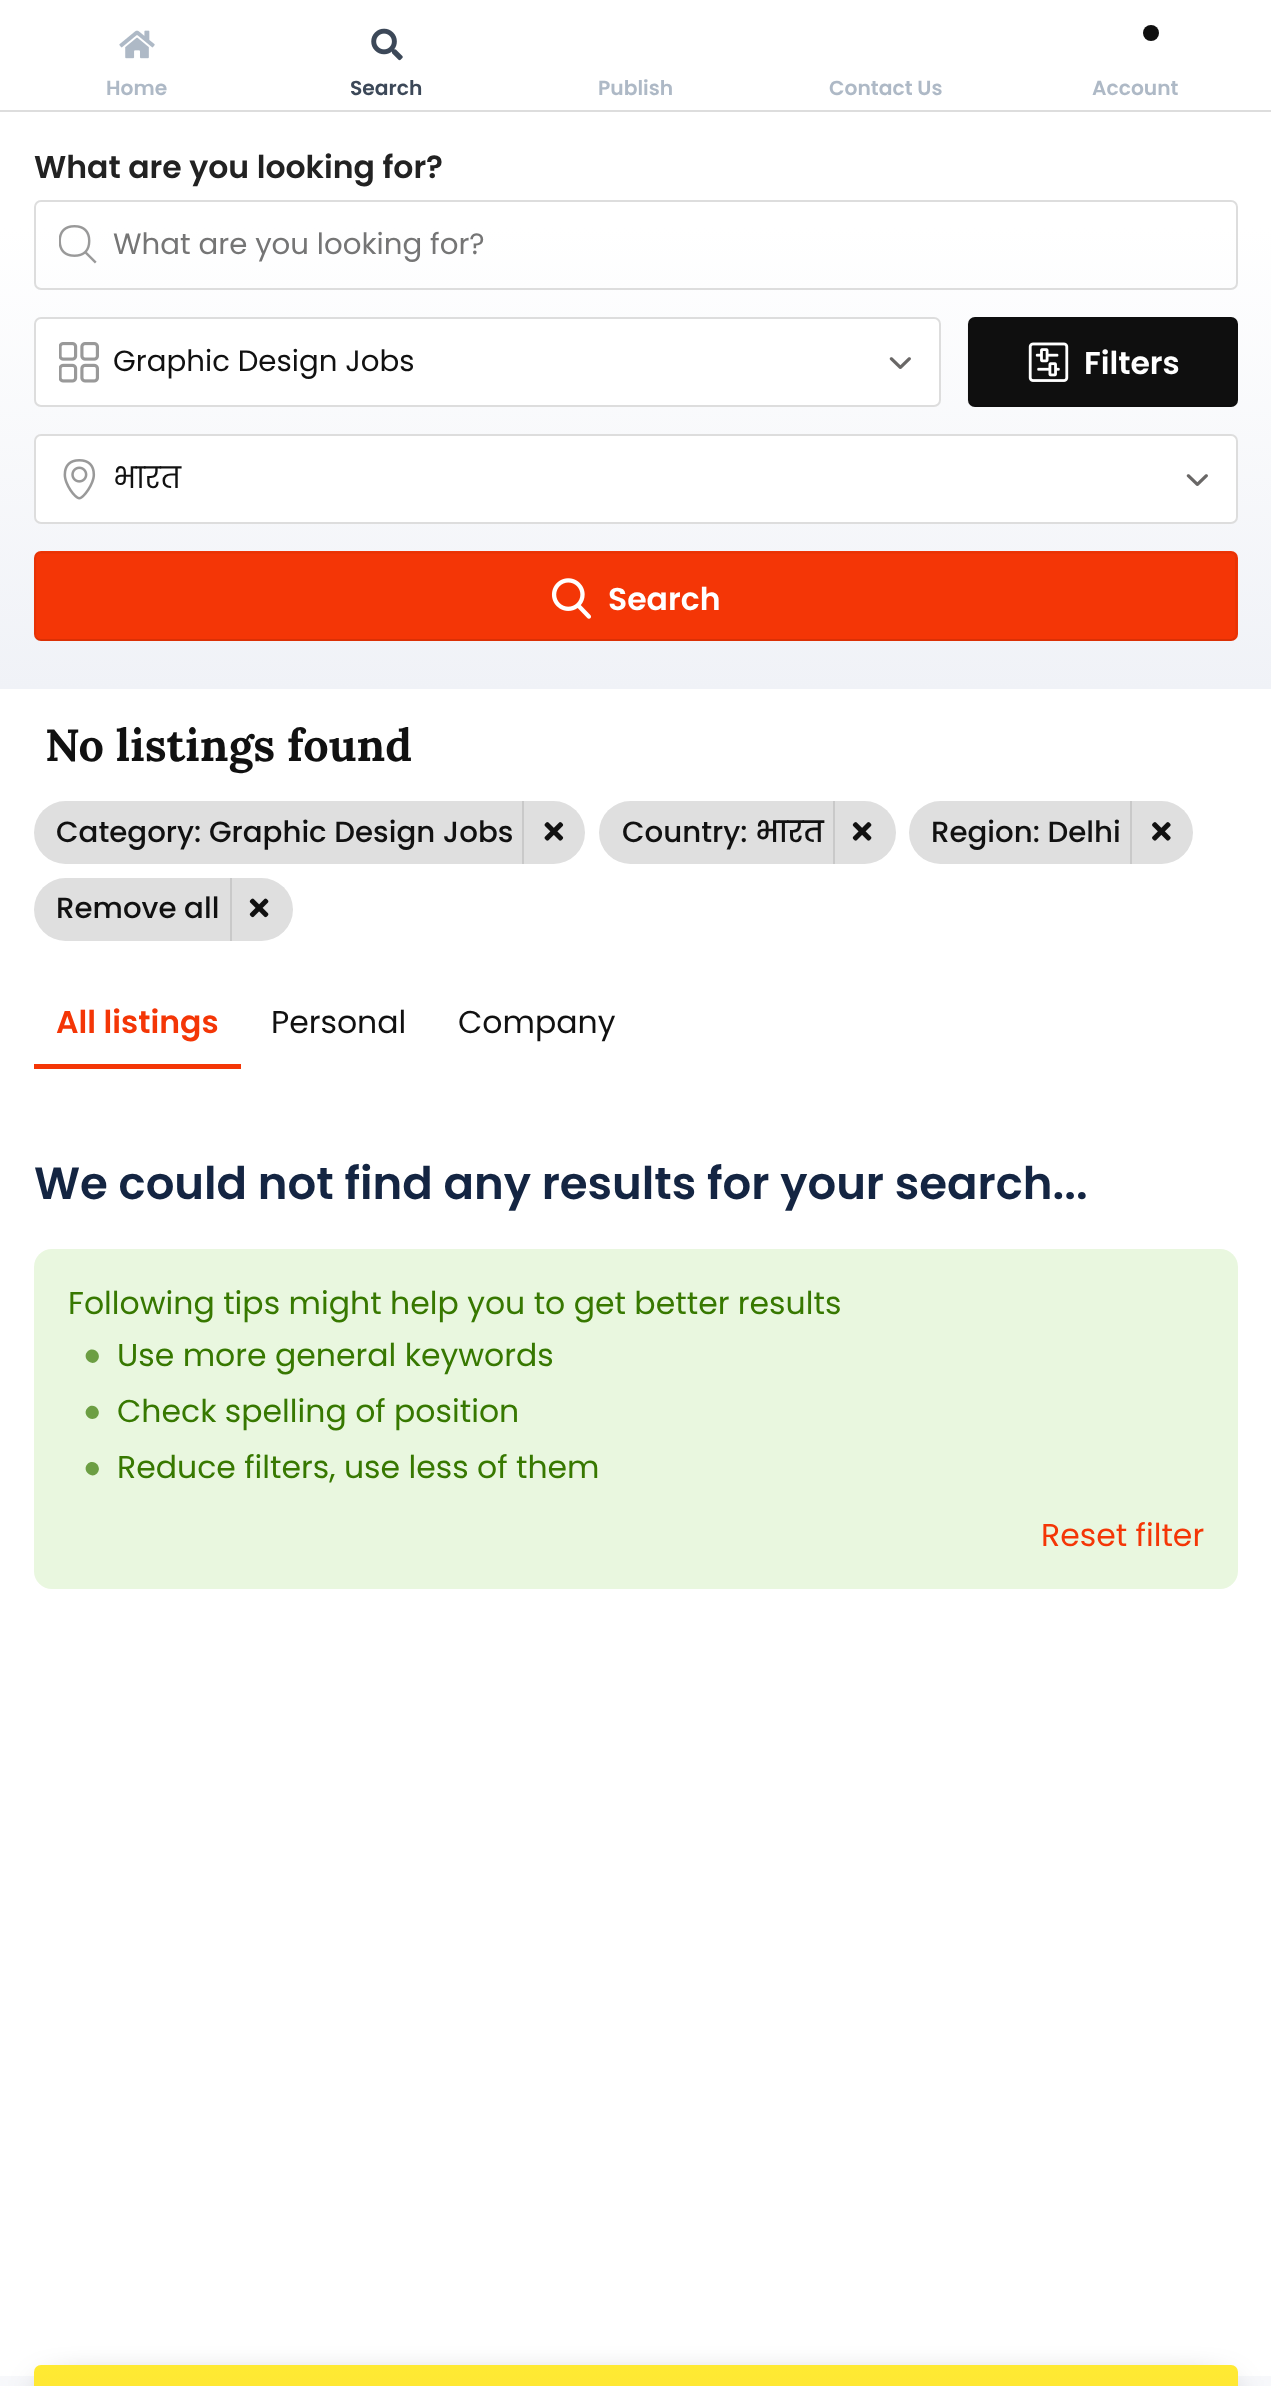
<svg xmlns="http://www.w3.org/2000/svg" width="1271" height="2386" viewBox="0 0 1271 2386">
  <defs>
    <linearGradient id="g1" gradientUnits="userSpaceOnUse" x1="636" y1="112" x2="636" y2="689"><stop offset="0.2" stop-color="#ffffff"/><stop offset="1" stop-color="#f0f2f7"/></linearGradient>
    <clipPath id="clip1"><rect x="113" y="457" width="1032" height="45"/></clipPath>
    <filter id="blur1" x="-50%" y="-200%" width="200%" height="500%"><feGaussianBlur stdDeviation="20"/></filter>
    <linearGradient id="g2" gradientUnits="userSpaceOnUse" x1="636" y1="2365" x2="636" y2="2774"><stop offset="0" stop-color="#ffea32"/><stop offset="1" stop-color="#ffbe5f"/></linearGradient>
  </defs>
  <rect width="100%" height="100%" fill="#f7f8fb"/>
  <rect x="0" y="0" width="1271" height="113" fill="#ffffff"/>
  <rect x="0" y="110" width="1271" height="2" fill="#dddddd"/>
  <image x="119" y="30" width="36" height="29" href="img1.png"/>
  <text x="106" y="95" font-family="Poppins" font-size="20.25" font-weight="600" fill="#aeb9c6">Home</text>
  <image x="371" y="28" width="32" height="33" href="img2.png"/>
  <text x="350" y="95" font-family="Poppins" font-size="20.25" font-weight="600" fill="#3c4858">Search</text>
  <text x="598" y="95" font-family="Poppins" font-size="20.25" font-weight="600" fill="#aeb9c6">Publish</text>
  <text x="829" y="95" font-family="Poppins" font-size="20.25" font-weight="600" fill="#aeb9c6">Contact Us</text>
  <circle cx="1151" cy="33" r="8" fill="#0f0f0f"/>
  <text x="1092" y="95" font-family="Poppins" font-size="20.25" font-weight="600" fill="#aeb9c6">Account</text>
  <rect x="0" y="113" width="1271" height="576" fill="url(#g1)"/>
  <text x="34" y="178" font-family="Poppins" font-size="31.5" font-weight="600" fill="#222222">What are you looking for?</text>
  <rect x="35" y="201" width="1202" height="88" rx="6" fill="none" stroke="#dddddd" stroke-width="2"/>
  <image x="59" y="225" width="38" height="39" href="img3.png"/>
  <text x="113" y="254" font-family="Poppins" font-size="29.25" fill="#757575">What are you looking for?</text>
  <rect x="35" y="318" width="905" height="88" rx="6" fill="#ffffff" stroke="#dddddd" stroke-width="2"/>
  <image x="59" y="342" width="40" height="41" href="img4.png"/>
  <text x="113" y="371" font-family="Poppins" font-size="29.25" fill="#111111">Graphic Design Jobs</text>
  <image x="889" y="357" width="22" height="12" href="img5.png"/>
  <rect x="968" y="317" width="270" height="90" rx="7" fill="#0f0f0f"/>
  <path d="M1234.5 404.5C1233.5 405.5 1232 406 1231 406H974C973 406 971.5 405.5 970.5 404.5" fill="none" stroke="#000000" stroke-opacity="0.1" stroke-width="2.2"/>
  <path d="M970.5 404.5C969 403.5 968.5 402 968.5 400.5V324C968.5 322.5 969 321 970.5 320C971.5 319 973 318.5 974 318.5H1231C1232 318.5 1233.5 319 1234.5 320C1236 321 1236.5 322.5 1236.5 324V400.5C1236.5 402 1236 403.5 1234.5 404.5" fill="none" stroke="#000000" stroke-opacity="0.05" stroke-width="2.2"/>
  <image x="1028" y="342" width="41" height="40" href="img6.png"/>
  <text x="1084" y="374" font-family="Poppins" font-size="31.5" font-weight="600" fill="#ffffff">Filters</text>
  <rect x="35" y="435" width="1202" height="88" rx="6" fill="#ffffff" stroke="#dddddd" stroke-width="2"/>
  <image x="63" y="459" width="33" height="41" href="img7.png"/>
  <g clip-path="url(#clip1)">
    <text x="113" y="488" font-family="Poppins" font-size="29.25" fill="#111111">भारत</text>
  </g>
  <image x="1186" y="474" width="22" height="12" href="img5.png"/>
  <rect x="34" y="551" width="1204" height="90" rx="7" fill="#f43606"/>
  <path d="M1234.5 638.5C1233.5 639.5 1232 640 1231 640H40.5C39 640 37.5 639.5 36.5 638.5" fill="none" stroke="#000000" stroke-opacity="0.1" stroke-width="2.2"/>
  <path d="M36.5 638.5L35 635V556.5L36 555C36.5 553.5 38.5 552.5 40 552.5H1231.5C1233 552.5 1234.5 553.5 1235.5 555L1236 556.5L1236.5 635L1234.5 638.5" fill="none" stroke="#000000" stroke-opacity="0.05" stroke-width="2.2"/>
  <image x="551" y="578" width="40" height="41" href="img8.png"/>
  <text x="608" y="610" font-family="Poppins" font-size="31.5" font-weight="600" fill="#ffffff">Search</text>
  <rect x="0" y="689" width="1271" height="1687" fill="#ffffff"/>
  <text x="45" y="761" font-family="Lora" font-size="45" font-weight="bold" fill="#111111">No listings found</text>
  <rect x="34" y="801" width="551" height="63" rx="31.5" fill="#dfdfdf"/>
  <text x="56" y="842" font-family="Poppins" font-size="29.25" font-weight="500" fill="#111111">Category: Graphic Design Jobs</text>
  <rect x="522" y="801" width="2" height="63" fill="#c9c9c9"/>
  <image x="544" y="822" width="20" height="19" href="img9.png"/>
  <rect x="599" y="801" width="297" height="63" rx="31.5" fill="#dfdfdf"/>
  <text x="622" y="842" font-family="Poppins" font-size="29.25" font-weight="500" fill="#111111">Country: भारत</text>
  <rect x="833" y="801" width="2" height="63" fill="#c9c9c9"/>
  <image x="852" y="822" width="20" height="19" href="img10.png"/>
  <rect x="909" y="801" width="284" height="63" rx="31.5" fill="#dfdfdf"/>
  <text x="931" y="842" font-family="Poppins" font-size="29.25" font-weight="500" fill="#111111">Region: Delhi</text>
  <rect x="1130" y="801" width="2" height="63" fill="#c9c9c9"/>
  <image x="1152" y="822" width="19" height="19" href="img11.png"/>
  <rect x="34" y="878" width="259" height="63" rx="31.5" fill="#dfdfdf"/>
  <text x="56" y="918" font-family="Poppins" font-size="29.25" font-weight="500" fill="#111111">Remove all</text>
  <rect x="230" y="878" width="2" height="63" fill="#c9c9c9"/>
  <image x="249" y="898" width="20" height="20" href="img12.png"/>
  <rect x="34" y="1064" width="207" height="5" fill="#f43606"/>
  <text x="56" y="1033" font-family="Poppins" font-size="31.5" font-weight="600" fill="#f43606">All listings</text>
  <text x="271" y="1033" font-family="Poppins" font-size="31.5" fill="#111111">Personal</text>
  <text x="458" y="1033" font-family="Poppins" font-size="31.5" fill="#111111">Company</text>
  <text x="34" y="1199" font-family="Poppins" font-size="45" font-weight="600" fill="#142542">We could not find any results for your search...</text>
  <rect x="34" y="1249" width="1204" height="340" rx="18" fill="#e9f7df"/>
  <text x="68" y="1314" font-family="Poppins" font-size="31.5" fill="#377800">Following tips might help you to get better results</text>
  <path d="M87.5 1351.5C93.5 1345.5 103 1354.5 97 1361C91 1367 81.5 1357.5 87.5 1351.5Z" fill="#6c9e43"/>
  <text x="117" y="1366" font-family="Poppins" font-size="31.5" fill="#377800">Use more general keywords</text>
  <path d="M87.5 1408C93.5 1401.5 103 1411 97 1417C91 1423 81.5 1414 87.5 1408Z" fill="#6c9e43"/>
  <text x="117" y="1422" font-family="Poppins" font-size="31.5" fill="#377800">Check spelling of position</text>
  <path d="M87.5 1464C93.5 1458 103 1467 97 1473.5C91 1479.5 81.5 1470 87.5 1464Z" fill="#6c9e43"/>
  <text x="117" y="1478" font-family="Poppins" font-size="31.5" fill="#377800">Reduce filters, use less of them</text>
  <text x="1041" y="1546" font-family="Poppins" font-size="31.5" fill="#f43606">Reset filter</text>
  <rect x="52" y="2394" width="1168" height="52" fill="#000000" fill-opacity="0.8" filter="url(#blur1)"/>
  <rect x="34" y="2365" width="1204" height="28" rx="7" fill="url(#g2)"/>
</svg>
